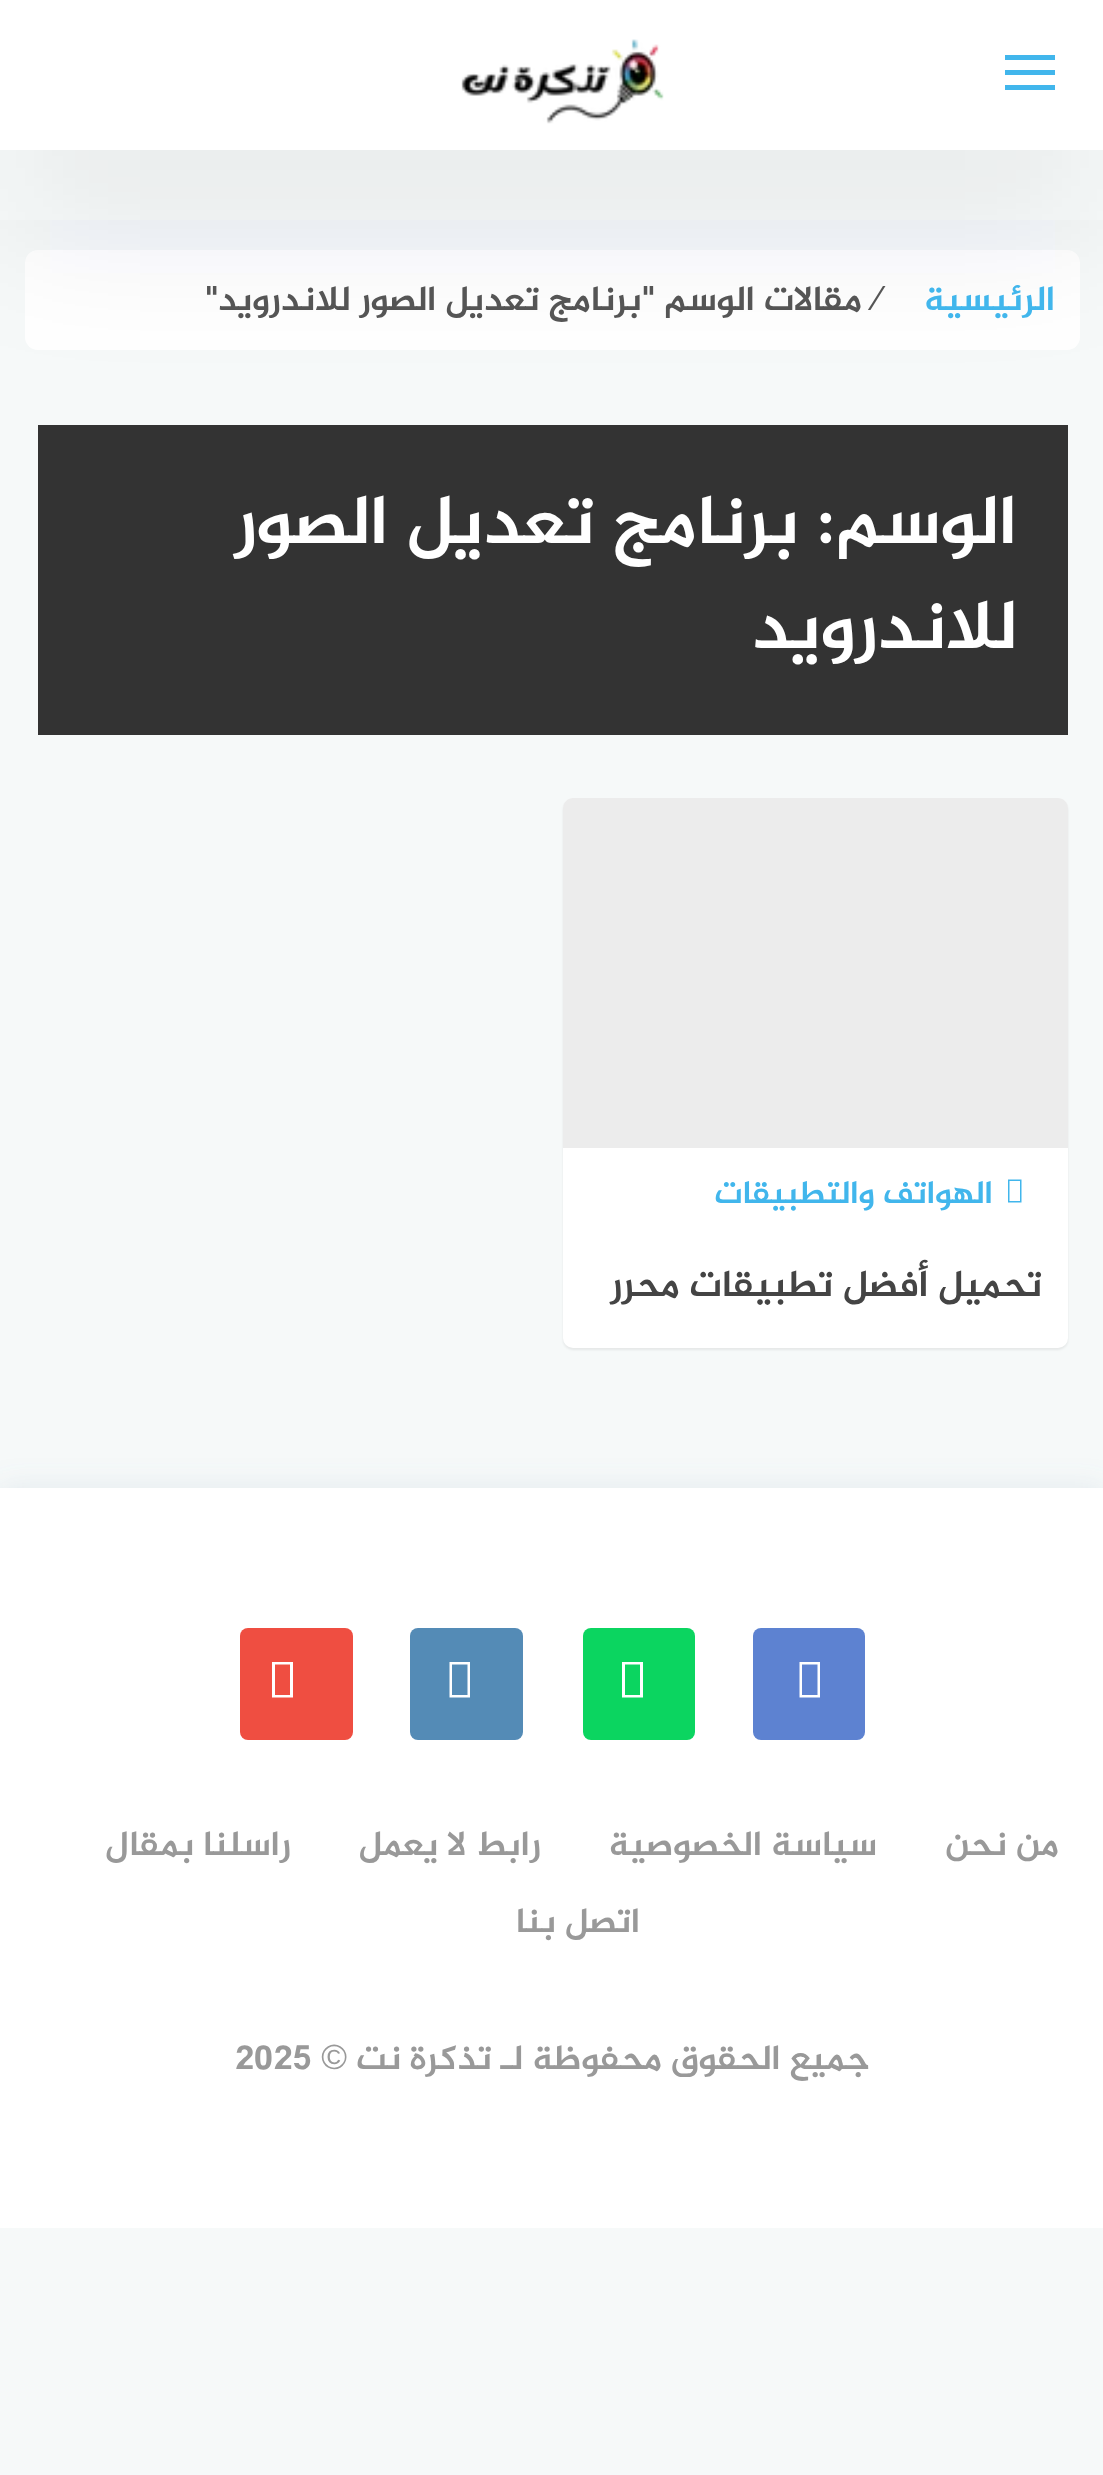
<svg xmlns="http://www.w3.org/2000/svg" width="1103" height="2475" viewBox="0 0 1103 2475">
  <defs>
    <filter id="blur1" x="-50%" y="-200%" width="200%" height="500%"><feGaussianBlur stdDeviation="75"/></filter>
    <filter id="blur2" x="-50%" y="-200%" width="200%" height="500%"><feGaussianBlur stdDeviation="1"/></filter>
    <clipPath id="clip1"><rect x="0" y="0" width="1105" height="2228"/></clipPath>
    <filter id="blur3" x="-50%" y="-200%" width="200%" height="500%"><feGaussianBlur stdDeviation="15"/></filter>
  </defs>
  <rect width="100%" height="100%" fill="#f6f9f9"/>
  <rect x="25" y="250" width="1055" height="100" rx="13" fill="#ffffff"/>
  <rect x="38" y="425" width="1030" height="310" fill="#333333"/>
  <rect x="0" y="73" width="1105" height="150" fill="#363949" fill-opacity="0.09" filter="url(#blur1)"/>
  <rect x="0" y="0" width="1103" height="150" fill="#ffffff"/>
  <rect x="1005" y="55" width="50" height="5" fill="#41b6ec"/>
  <rect x="1005" y="70" width="50" height="5" fill="#41b6ec"/>
  <rect x="1005" y="85" width="50" height="5" fill="#41b6ec"/>
  <image x="461" y="39" width="203" height="85" href="img1.png"/>
  <text x="1055" y="310" font-family="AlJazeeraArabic" font-size="35" font-weight="bold" direction="rtl" fill="#41b6ec">الرئيسية</text>
  <text x="875" y="310" font-family="Liberation Sans" font-size="35" fill="#555555">⁄</text>
  <text x="862" y="310" font-family="AlJazeeraArabic" font-size="35" font-weight="bold" direction="rtl" fill="#555555">مقالات الوسم "برنامج تعديل الصور للاندرويد"</text>
  <text x="1017" y="543" font-family="AlJazeeraArabic" font-size="70" font-weight="bold" direction="rtl" fill="#ffffff">الوسم:</text>
  <text x="799" y="543" font-family="AlJazeeraArabic" font-size="70" font-weight="bold" direction="rtl" fill="#ffffff">برنامج تعديل الصور</text>
  <text x="1017" y="648" font-family="AlJazeeraArabic" font-size="70" font-weight="bold" direction="rtl" fill="#ffffff">للاندرويد</text>
  <rect x="563" y="800" width="505" height="550" rx="10" fill="#000000" fill-opacity="0.07" filter="url(#blur2)"/>
  <rect x="563" y="798" width="505" height="550" rx="10" fill="#ffffff"/>
  <path d="M573 798H1058C1063.5 798 1068 802.5 1068 808V1148H563V808C563 802.5 567.5 798 573 798Z" fill="#ececec"/>
  <path d="M1008 1202.5V1179.5H1021.5V1202.5ZM1009.5 1201H1020V1181H1009.5Z" fill="#41b6ec"/>
  <text x="993" y="1203" font-family="AlJazeeraArabic" font-size="32.5" font-weight="bold" direction="rtl" fill="#41b6ec">الهواتف والتطبيقات</text>
  <text x="1042" y="1296" font-family="AlJazeeraArabic" font-size="37.5" font-weight="bold" direction="rtl" fill="#444444">تحميل أفضل تطبيقات محرر</text>
  <g clip-path="url(#clip1)">
    <rect x="0" y="1488" width="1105" height="740" fill="#6e8fab" fill-opacity="0.15" filter="url(#blur3)"/>
  </g>
  <rect x="0" y="1488" width="1103" height="740" fill="#ffffff"/>
  <rect x="753" y="1628" width="112" height="112" rx="8" fill="#5d82d1"/>
  <path d="M799.5 1697.5V1662H820V1697.5ZM802 1695H817.5V1664.5H802Z" fill="#ffffff"/>
  <rect x="583" y="1628" width="112" height="112" rx="8" fill="#0bd560"/>
  <path d="M622 1697.5V1662H643V1697.5ZM625 1695H640V1664.5H625Z" fill="#ffffff"/>
  <rect x="410" y="1628" width="113" height="112" rx="8" fill="#548bb6"/>
  <path d="M449.5 1697.5V1662H470V1697.5ZM452 1695H467.5V1664.5H452Z" fill="#ffffff"/>
  <rect x="240" y="1628" width="113" height="112" rx="8" fill="#ef4e41"/>
  <path d="M272 1697.5V1662H293V1697.5ZM275 1695H290V1664.5H275Z" fill="#ffffff"/>
  <text x="1059" y="1855" font-family="AlJazeeraArabic" font-size="35" font-weight="bold" direction="rtl" fill="#999999">من نحن</text>
  <text x="877" y="1855" font-family="AlJazeeraArabic" font-size="35" font-weight="bold" direction="rtl" fill="#999999">سياسة الخصوصية</text>
  <text x="541" y="1855" font-family="AlJazeeraArabic" font-size="35" font-weight="bold" direction="rtl" fill="#999999">رابط لا يعمل</text>
  <text x="291" y="1855" font-family="AlJazeeraArabic" font-size="35" font-weight="bold" direction="rtl" fill="#999999">راسلنا بمقال</text>
  <text x="640" y="1932" font-family="AlJazeeraArabic" font-size="35" font-weight="bold" direction="rtl" fill="#999999">اتصل بنا</text>
  <text x="870" y="2069" font-family="AlJazeeraArabic" font-size="35" font-weight="bold" direction="rtl" fill="#999999">جميع الحقوق محفوظة لـ تذكرة نت</text>
  <text x="347" y="2069" font-family="Liberation Sans" font-size="35" direction="rtl" fill="#999999">©</text>
  <text x="235" y="2069" font-family="AlJazeeraArabic" font-size="35" font-weight="bold" fill="#999999">2025</text>
</svg>
